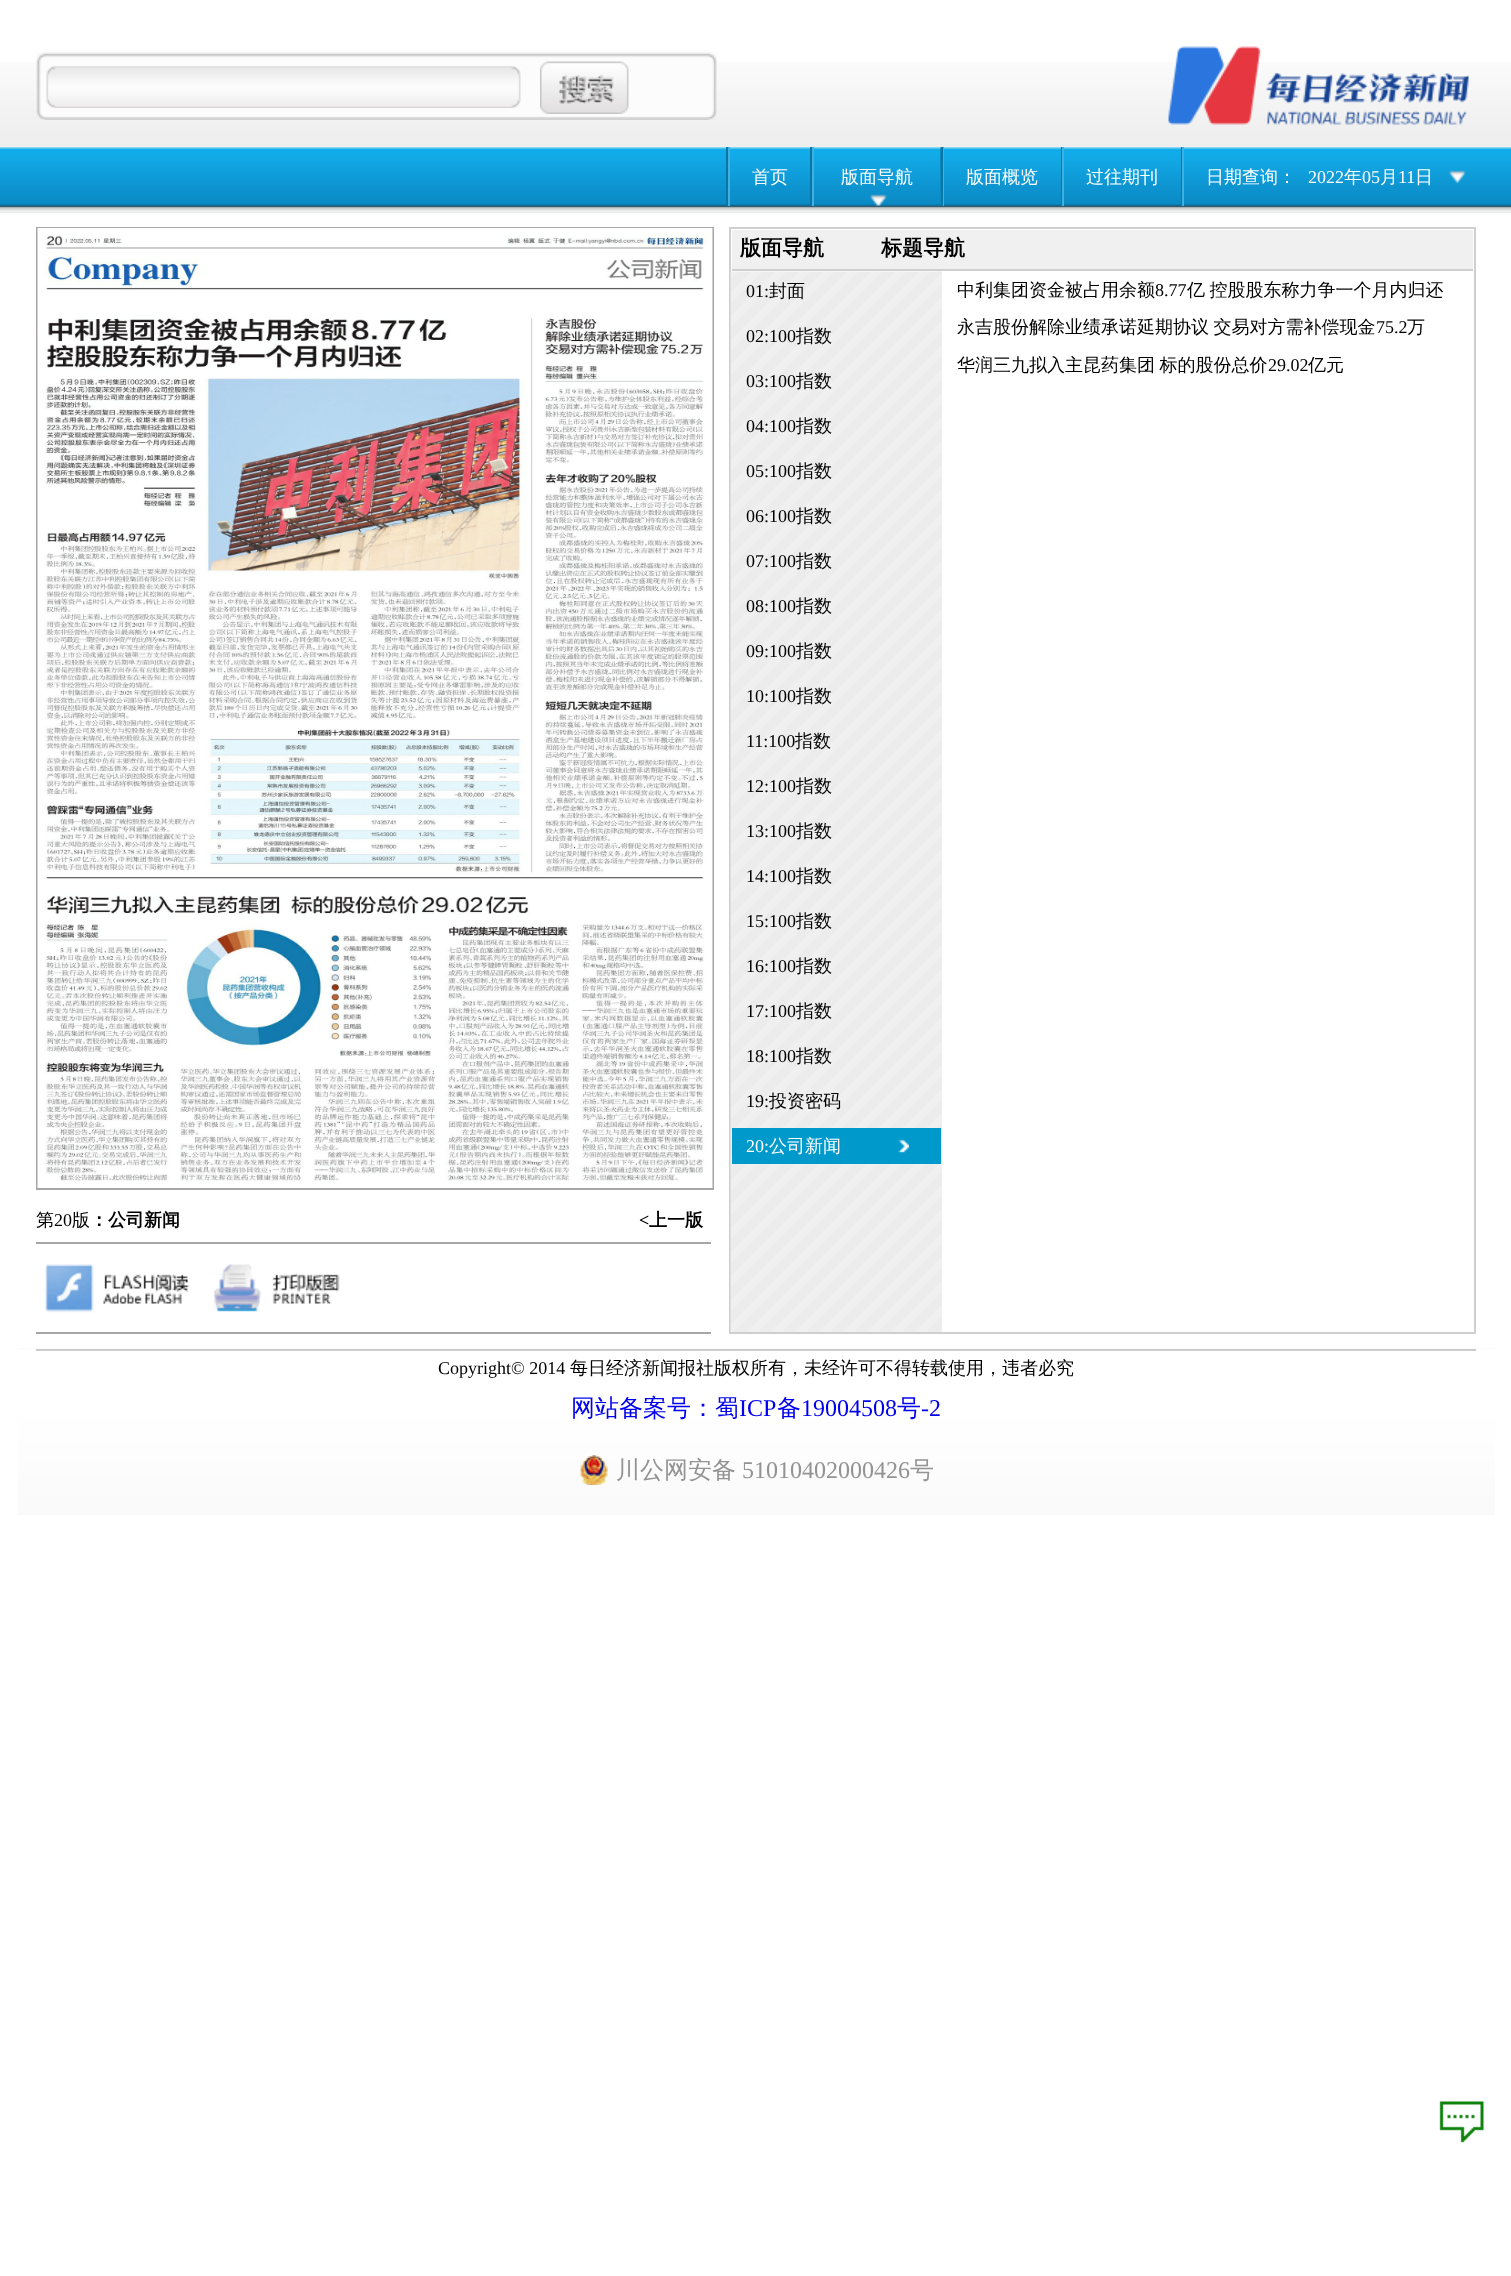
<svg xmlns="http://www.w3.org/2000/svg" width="1511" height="2276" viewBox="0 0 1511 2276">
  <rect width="100%" height="100%" fill="#ffffff"/>
  <image x="0" y="62" width="1511" height="85" href="img1.png"/>
  <image x="36" y="52" width="681" height="68" href="img2.png"/>
  <image x="46" y="66" width="475" height="42" href="img3.png"/>
  <image x="540" y="61" width="89" height="53" href="img4.png"/>
  <image x="1168" y="46" width="301" height="79" href="img5.png"/>
  <image x="0" y="147" width="1511" height="66" href="img6.png"/>
  <rect x="726" y="147" width="2" height="59" fill="#0a76a6"/>
  <rect x="810" y="147" width="2" height="59" fill="#0a76a6"/>
  <rect x="728" y="147" width="2" height="59" fill="#3fb1e1"/>
  <text x="752" y="183" font-family="WenQuanYi Zen Hei" font-size="18" font-weight="500" fill="#ffffff">首页</text>
  <image x="814" y="147" width="127" height="59" href="img7.png"/>
  <rect x="941" y="147" width="2" height="59" fill="#0a76a6"/>
  <rect x="812" y="147" width="2" height="59" fill="#3fb1e1"/>
  <text x="841" y="183" font-family="WenQuanYi Zen Hei" font-size="18" font-weight="500" fill="#ffffff">版面导航</text>
  <rect x="1061" y="147" width="1" height="59" fill="#0a76a6"/>
  <rect x="943" y="147" width="1" height="59" fill="#3fb1e1"/>
  <text x="966" y="183" font-family="WenQuanYi Zen Hei" font-size="18" font-weight="500" fill="#ffffff">版面概览</text>
  <rect x="1181" y="147" width="1" height="59" fill="#0a76a6"/>
  <rect x="1062" y="147" width="2" height="59" fill="#3fb1e1"/>
  <text x="1086" y="183" font-family="WenQuanYi Zen Hei" font-size="18" font-weight="500" fill="#ffffff">过往期刊</text>
  <rect x="1182" y="147" width="2" height="59" fill="#3fb1e1"/>
  <text x="1206" y="183" font-family="WenQuanYi Zen Hei" font-size="18" font-weight="500" fill="#ffffff">日期查询：</text>
  <image x="1449" y="170" width="17" height="13" href="img8.png"/>
  <text x="1308" y="183" font-family="Liberation Serif" font-size="18" fill="#ffffff">2022</text>
  <text x="1344" y="183" font-family="WenQuanYi Zen Hei" font-size="18" font-weight="500" fill="#ffffff">年</text>
  <text x="1362" y="183" font-family="Liberation Serif" font-size="18" fill="#ffffff">05</text>
  <text x="1380" y="183" font-family="WenQuanYi Zen Hei" font-size="18" font-weight="500" fill="#ffffff">月</text>
  <text x="1398" y="183" font-family="Liberation Serif" font-size="18" fill="#ffffff">11</text>
  <text x="1415" y="183" font-family="WenQuanYi Zen Hei" font-size="18" font-weight="500" fill="#ffffff">日</text>
  <rect x="730" y="228" width="745" height="1105" fill="none" stroke="#cfcfcf" stroke-width="2"/>
  <rect x="732" y="230" width="741" height="39" fill="#f0f0f0"/>
  <rect x="732" y="269" width="741" height="2" fill="#cfcfcf"/>
  <text x="740" y="255" font-family="WenQuanYi Zen Hei" font-size="21" font-weight="bold" fill="#000000">版面导航</text>
  <text x="881" y="255" font-family="WenQuanYi Zen Hei" font-size="21" font-weight="bold" fill="#000000">标题导航</text>
  <image x="730" y="271" width="212" height="1061" href="img9.png"/>
  <text x="746" y="297" font-family="Liberation Serif" font-size="18" fill="#000000">01:</text>
  <text x="769" y="297" font-family="WenQuanYi Zen Hei" font-size="18" font-weight="500" fill="#000000">封面</text>
  <text x="746" y="342" font-family="Liberation Serif" font-size="18" fill="#000000">02:100</text>
  <text x="796" y="342" font-family="WenQuanYi Zen Hei" font-size="18" font-weight="500" fill="#000000">指数</text>
  <text x="746" y="387" font-family="Liberation Serif" font-size="18" fill="#000000">03:100</text>
  <text x="796" y="387" font-family="WenQuanYi Zen Hei" font-size="18" font-weight="500" fill="#000000">指数</text>
  <text x="746" y="432" font-family="Liberation Serif" font-size="18" fill="#000000">04:100</text>
  <text x="796" y="432" font-family="WenQuanYi Zen Hei" font-size="18" font-weight="500" fill="#000000">指数</text>
  <text x="746" y="477" font-family="Liberation Serif" font-size="18" fill="#000000">05:100</text>
  <text x="796" y="477" font-family="WenQuanYi Zen Hei" font-size="18" font-weight="500" fill="#000000">指数</text>
  <text x="746" y="522" font-family="Liberation Serif" font-size="18" fill="#000000">06:100</text>
  <text x="796" y="522" font-family="WenQuanYi Zen Hei" font-size="18" font-weight="500" fill="#000000">指数</text>
  <text x="746" y="567" font-family="Liberation Serif" font-size="18" fill="#000000">07:100</text>
  <text x="796" y="567" font-family="WenQuanYi Zen Hei" font-size="18" font-weight="500" fill="#000000">指数</text>
  <text x="746" y="612" font-family="Liberation Serif" font-size="18" fill="#000000">08:100</text>
  <text x="796" y="612" font-family="WenQuanYi Zen Hei" font-size="18" font-weight="500" fill="#000000">指数</text>
  <text x="746" y="657" font-family="Liberation Serif" font-size="18" fill="#000000">09:100</text>
  <text x="796" y="657" font-family="WenQuanYi Zen Hei" font-size="18" font-weight="500" fill="#000000">指数</text>
  <text x="746" y="702" font-family="Liberation Serif" font-size="18" fill="#000000">10:100</text>
  <text x="796" y="702" font-family="WenQuanYi Zen Hei" font-size="18" font-weight="500" fill="#000000">指数</text>
  <text x="746" y="747" font-family="Liberation Serif" font-size="18" fill="#000000">11:100</text>
  <text x="795" y="747" font-family="WenQuanYi Zen Hei" font-size="18" font-weight="500" fill="#000000">指数</text>
  <text x="746" y="792" font-family="Liberation Serif" font-size="18" fill="#000000">12:100</text>
  <text x="796" y="792" font-family="WenQuanYi Zen Hei" font-size="18" font-weight="500" fill="#000000">指数</text>
  <text x="746" y="837" font-family="Liberation Serif" font-size="18" fill="#000000">13:100</text>
  <text x="796" y="837" font-family="WenQuanYi Zen Hei" font-size="18" font-weight="500" fill="#000000">指数</text>
  <text x="746" y="882" font-family="Liberation Serif" font-size="18" fill="#000000">14:100</text>
  <text x="796" y="882" font-family="WenQuanYi Zen Hei" font-size="18" font-weight="500" fill="#000000">指数</text>
  <text x="746" y="927" font-family="Liberation Serif" font-size="18" fill="#000000">15:100</text>
  <text x="796" y="927" font-family="WenQuanYi Zen Hei" font-size="18" font-weight="500" fill="#000000">指数</text>
  <text x="746" y="972" font-family="Liberation Serif" font-size="18" fill="#000000">16:100</text>
  <text x="796" y="972" font-family="WenQuanYi Zen Hei" font-size="18" font-weight="500" fill="#000000">指数</text>
  <text x="746" y="1017" font-family="Liberation Serif" font-size="18" fill="#000000">17:100</text>
  <text x="796" y="1017" font-family="WenQuanYi Zen Hei" font-size="18" font-weight="500" fill="#000000">指数</text>
  <text x="746" y="1062" font-family="Liberation Serif" font-size="18" fill="#000000">18:100</text>
  <text x="796" y="1062" font-family="WenQuanYi Zen Hei" font-size="18" font-weight="500" fill="#000000">指数</text>
  <text x="746" y="1107" font-family="Liberation Serif" font-size="18" fill="#000000">19:</text>
  <text x="769" y="1107" font-family="WenQuanYi Zen Hei" font-size="18" font-weight="500" fill="#000000">投资密码</text>
  <rect x="732" y="1128" width="209" height="36" fill="#0099cc"/>
  <image x="898" y="1139" width="11" height="14" href="img10.png"/>
  <text x="746" y="1152" font-family="Liberation Serif" font-size="18" fill="#ffffff">20:</text>
  <text x="769" y="1152" font-family="WenQuanYi Zen Hei" font-size="18" font-weight="500" fill="#ffffff">公司新闻</text>
  <text x="957" y="296" font-family="WenQuanYi Zen Hei" font-size="18" font-weight="500" fill="#000000">中利集团资金被占用余额</text>
  <text x="1155" y="296" font-family="Liberation Serif" font-size="18" fill="#000000">8.77</text>
  <text x="1187" y="296" word-spacing="-1" font-family="WenQuanYi Zen Hei" font-size="18" font-weight="500" fill="#000000">亿 控股股东称力争一个月内归还</text>
  <text x="957" y="333" word-spacing="-1" font-family="WenQuanYi Zen Hei" font-size="18" font-weight="500" fill="#000000">永吉股份解除业绩承诺延期协议 交易对方需补偿现金</text>
  <text x="1376" y="333" font-family="Liberation Serif" font-size="18" fill="#000000">75.2</text>
  <text x="1407" y="333" font-family="WenQuanYi Zen Hei" font-size="18" font-weight="500" fill="#000000">万</text>
  <text x="957" y="371" word-spacing="-1" font-family="WenQuanYi Zen Hei" font-size="18" font-weight="500" fill="#000000">华润三九拟入主昆药集团 标的股份总价</text>
  <text x="1268" y="371" font-family="Liberation Serif" font-size="18" fill="#000000">29.02</text>
  <text x="1308" y="371" font-family="WenQuanYi Zen Hei" font-size="18" font-weight="500" fill="#000000">亿元</text>
  <rect x="37" y="228" width="676" height="961" fill="none" stroke="#a7a5a5" stroke-width="2"/>
  <image x="37" y="228" width="676" height="960" href="img11.png"/>
  <rect x="36" y="1242" width="675" height="2" fill="#a7a5a5"/>
  <text x="36" y="1226" font-family="WenQuanYi Zen Hei" font-size="18" font-weight="500" fill="#000000">第</text>
  <text x="54" y="1226" font-family="Liberation Serif" font-size="18" fill="#000000">20</text>
  <text x="72" y="1226" font-family="WenQuanYi Zen Hei" font-size="18" font-weight="500" fill="#000000">版</text>
  <text x="90" y="1226" font-family="WenQuanYi Zen Hei" font-size="18" font-weight="bold" fill="#000000">：公司新闻</text>
  <text x="639" y="1226" font-family="Liberation Serif" font-size="18" font-weight="bold" fill="#000000">&lt;</text>
  <text x="649" y="1226" font-family="WenQuanYi Zen Hei" font-size="18" font-weight="bold" fill="#000000">上一版</text>
  <rect x="36" y="1332" width="675" height="2" fill="#a7a5a5"/>
  <image x="45" y="1264" width="145" height="49" href="img12.png"/>
  <image x="213" y="1264" width="127" height="48" href="img13.png"/>
  <image x="18" y="1348" width="1477" height="167" href="img14.png"/>
  <rect x="36" y="1349" width="1440" height="2" fill="#cccccc"/>
  <text x="438" y="1374" font-family="Liberation Serif" font-size="18" fill="#000000">Copyright© 2014</text>
  <text x="570" y="1374" font-family="WenQuanYi Zen Hei" font-size="18" font-weight="500" fill="#000000">每日经济新闻报社版权所有，未经许可不得转载使用，违者必究</text>
  <text x="571" y="1416" font-family="WenQuanYi Zen Hei" font-size="24" font-weight="500" fill="#0000ee">网站备案号：蜀</text>
  <text x="739" y="1416" font-family="Liberation Serif" font-size="24" fill="#0000ee">ICP</text>
  <text x="777" y="1416" font-family="WenQuanYi Zen Hei" font-size="24" font-weight="500" fill="#0000ee">备</text>
  <text x="801" y="1416" font-family="Liberation Serif" font-size="24" fill="#0000ee">19004508</text>
  <text x="897" y="1416" font-family="WenQuanYi Zen Hei" font-size="24" font-weight="500" fill="#0000ee">号</text>
  <text x="921" y="1416" font-family="Liberation Serif" font-size="24" fill="#0000ee">-2</text>
  <image x="580" y="1455" width="28" height="30" href="img15.png"/>
  <text x="616" y="1478" font-family="WenQuanYi Zen Hei" font-size="24" font-weight="500" fill="#939393">川公网安备</text>
  <text x="742" y="1478" font-family="Liberation Serif" font-size="24" fill="#939393">51010402000426</text>
  <text x="910" y="1478" font-family="WenQuanYi Zen Hei" font-size="24" font-weight="500" fill="#939393">号</text>
  <image x="1439" y="2101" width="45" height="42" href="img16.png"/>
</svg>
